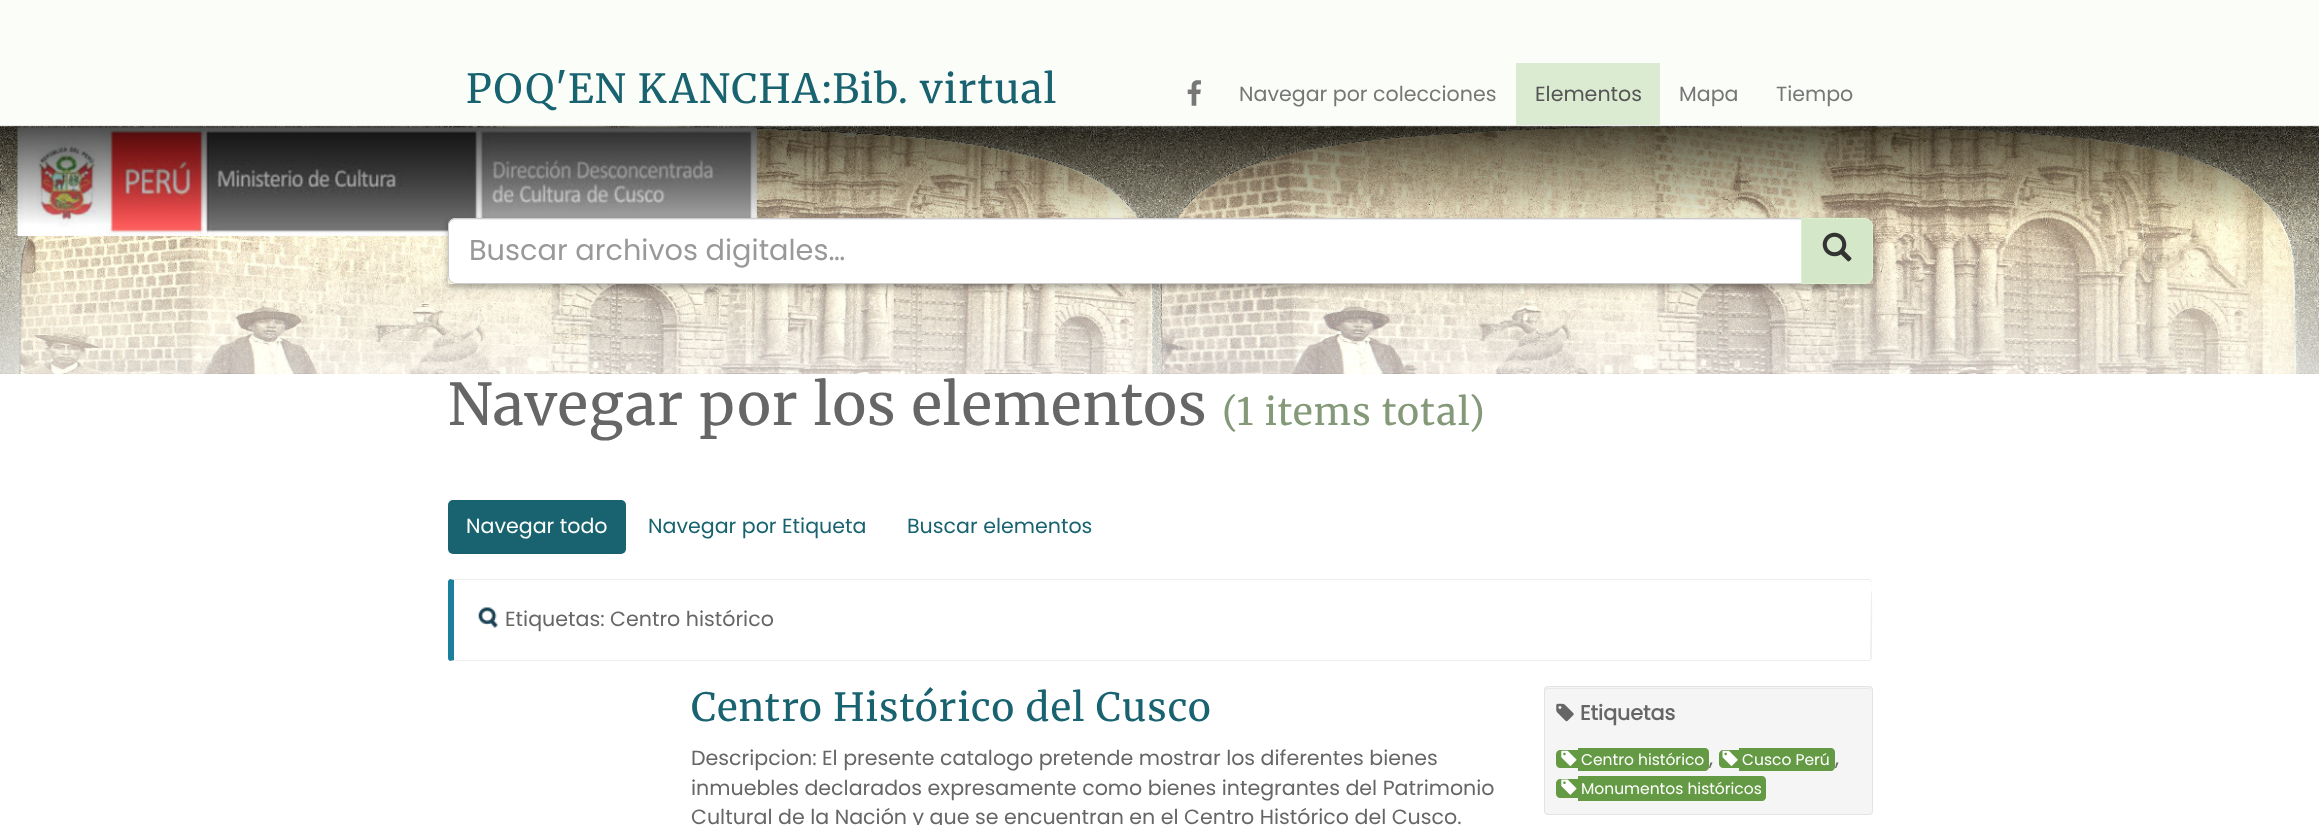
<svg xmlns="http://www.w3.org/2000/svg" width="2319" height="825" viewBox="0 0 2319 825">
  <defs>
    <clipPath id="clip1"><path d="M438 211H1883V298H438ZM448 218H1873V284H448Z" clip-rule="evenodd"/></clipPath>
    <filter id="blur1" x="-50%" y="-200%" width="200%" height="500%"><feGaussianBlur stdDeviation="3"/></filter>
  </defs>
  <rect width="100%" height="100%" fill="#fbfdf8"/>
  <rect x="0" y="125" width="2319" height="1" fill="#e7e7e7"/>
  <text x="466" y="103" font-family="Merriweather" font-size="40" font-weight="300" letter-spacing="1.25" fill="#196371">POQ'EN KANCHA:Bib. virtual</text>
  <image x="1187" y="80" width="14" height="26" href="img1.png"/>
  <text x="1239" y="101" font-family="Poppins" font-size="20.6" fill="#777777">Navegar por colecciones</text>
  <rect x="1516" y="63" width="144" height="62" fill="#dbebd1"/>
  <text x="1535" y="101" font-family="Poppins" font-size="20.6" fill="#555555">Elementos</text>
  <text x="1679" y="101" font-family="Poppins" font-size="20.6" fill="#777777">Mapa</text>
  <text x="1776" y="101" font-family="Poppins" font-size="20.6" fill="#777777">Tiempo</text>
  <image x="0" y="126" width="2319" height="248" href="img2.png"/>
  <g clip-path="url(#clip1)">
    <rect x="448" y="221" width="1425" height="67" fill="#000000" fill-opacity="0.3" filter="url(#blur1)"/>
  </g>
  <path d="M456 218H1803V284H456C451.5 284 448 280.5 448 276V226C448 221.5 451.5 218 456 218Z" fill="#ffffff"/>
  <path d="M455 220H1801V219H455C451 219 449 222 449 226C449 223 452 220 455 220Z" fill="#ececec"/>
  <path d="M456 218.5H1802.5V283.5H456C452 283.5 448.5 280 448.5 276V226C448.5 222 452 218.5 456 218.5Z" fill="none" stroke="#cccccc"/>
  <text x="469" y="260" font-family="Poppins" font-size="28.75" fill="#999999">Buscar archivos digitales…</text>
  <path d="M1801.5 218.5H1865C1869 218.5 1872.5 222 1872.5 226V276C1872.5 280 1869 283.5 1865 283.5H1801.5Z" fill="#d4e7c8" stroke="#dbf1ce"/>
  <image x="1822" y="232" width="30" height="30" href="img3.png"/>
  <rect x="0" y="374" width="2319" height="451" fill="#ffffff"/>
  <text x="448" y="425" font-family="Merriweather" font-size="57.5" font-weight="300" letter-spacing="1.25" fill="#666666">Navegar por los elementos</text>
  <text x="1222" y="425" font-family="Merriweather" font-size="37.5" font-weight="300" letter-spacing="1.25" fill="#849978">(1 items total)</text>
  <rect x="448" y="500" width="178" height="54" rx="5" fill="#196371"/>
  <text x="466" y="533" font-family="Poppins" font-size="20.6" fill="#fbfdf8">Navegar todo</text>
  <text x="648" y="533" font-family="Poppins" font-size="20.6" fill="#196371">Navegar por Etiqueta</text>
  <text x="907" y="533" font-family="Poppins" font-size="20.6" fill="#196371">Buscar elementos</text>
  <path d="M451 579H450L454 580H1869L1870 581L1871 580L1869 579Z" fill="#eeeeee"/>
  <path d="M1871 580C1873 581 1872 651 1872 658L1871 660L1870 659L1871 595C1871 590 1874 584 1870 581Z" fill="#eeeeee"/>
  <path d="M1871 660L1869 661H450L454 660H1869L1870 659Z" fill="#eeeeee"/>
  <path d="M450 579C449 580 448 580 448 582V658C448 660 449 660 450 661L454 660V580Z" fill="#1b809e"/>
  <image x="478" y="607" width="20" height="21" href="img4.png"/>
  <text x="505" y="626" font-family="Poppins" font-size="20.6" fill="#666666">Etiquetas: Centro histórico</text>
  <text x="691" y="721" font-family="Merriweather" font-size="38.75" font-weight="300" letter-spacing="1.25" fill="#196371">Centro Histórico del Cusco</text>
  <text x="691" y="765" font-family="Poppins" font-size="20.6" fill="#666666">Descripcion: El presente catalogo pretende mostrar los diferentes bienes</text>
  <text x="691" y="795" font-family="Poppins" font-size="20.6" fill="#666666">inmuebles declarados expresamente como bienes integrantes del Patrimonio</text>
  <text x="691" y="824" font-family="Poppins" font-size="20.6" fill="#666666">Cultural de la Nación y que se encuentran en el Centro Histórico del Cusco.</text>
  <rect x="1544" y="686" width="329" height="129" rx="4" fill="#f5f5f5"/>
  <path d="M1548 689H1869C1870 689 1871 690 1871 691V690L1869 688H1548C1546 688 1545 689 1545 691C1545 690 1546 689 1548 689Z" fill="#e9e9e9"/>
  <rect x="1544.5" y="686.5" width="328" height="128" rx="3.5" fill="none" stroke="#e3e3e3"/>
  <image x="1556" y="703" width="18" height="19" href="img5.png"/>
  <text x="1580" y="720" font-family="Poppins" font-size="20.6" font-weight="bold" fill="#666666">Etiquetas</text>
  <path d="M1560 750H1578V768H1560C1558 768 1556 766 1556 764V754C1556 752 1558 750 1560 750Z" fill="#649a44"/>
  <rect x="1578" y="748" width="3" height="23" fill="#649a44"/>
  <path d="M1581 748H1705C1707 748 1709 750 1709 752V767C1709 769 1707 771 1705 771H1581Z" fill="#649a44"/>
  <image x="1561" y="750" width="16" height="17" href="img6.png"/>
  <text x="1581" y="765" font-family="Poppins" font-size="15.5" fill="#ffffff">Centro histórico</text>
  <text x="1709" y="765" font-family="Poppins" font-size="20.6" fill="#666666">,</text>
  <path d="M1723 750H1739V768H1723C1721 768 1719 766 1719 764V754C1719 752 1721 750 1723 750Z" fill="#649a44"/>
  <rect x="1739" y="748" width="4" height="23" fill="#649a44"/>
  <path d="M1743 748H1831C1833 748 1835 750 1835 752V767C1835 769 1833 771 1831 771H1743Z" fill="#649a44"/>
  <image x="1722" y="750" width="16" height="17" href="img7.png"/>
  <text x="1742" y="765" font-family="Poppins" font-size="15.5" fill="#ffffff">Cusco Perú</text>
  <text x="1835" y="765" font-family="Poppins" font-size="20.6" fill="#666666">,</text>
  <path d="M1560 779H1578V798H1560C1558 798 1556 796 1556 794V783C1556 781 1558 779 1560 779Z" fill="#649a44"/>
  <rect x="1578" y="776" width="3" height="25" fill="#649a44"/>
  <path d="M1581 776H1762C1764 776 1766 778 1766 780V797C1766 799 1764 801 1762 801H1581Z" fill="#649a44"/>
  <image x="1561" y="779" width="16" height="16" href="img8.png"/>
  <text x="1581" y="794" font-family="Poppins" font-size="15.5" fill="#ffffff">Monumentos históricos</text>
</svg>
